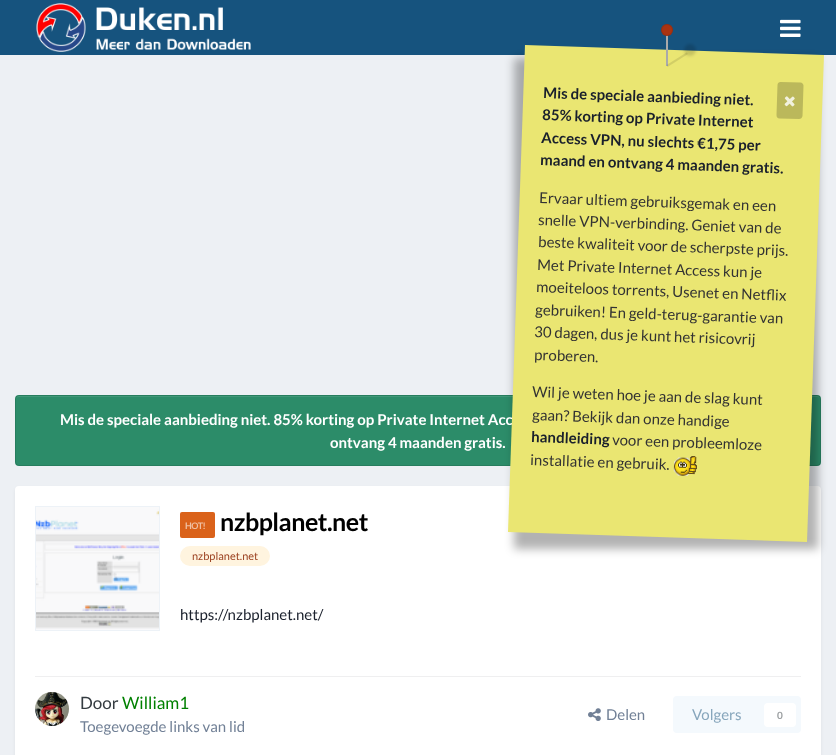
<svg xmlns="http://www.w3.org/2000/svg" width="836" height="755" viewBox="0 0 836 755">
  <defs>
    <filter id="blur1" x="-50%" y="-200%" width="200%" height="500%"><feGaussianBlur stdDeviation="2"/></filter>
    <filter id="blur2" x="-50%" y="-200%" width="200%" height="500%"><feGaussianBlur stdDeviation="5"/></filter>
    <filter id="blur3" x="-50%" y="-200%" width="200%" height="500%"><feGaussianBlur stdDeviation="1.5"/></filter>
  </defs>
  <rect width="100%" height="100%" fill="#edf0f4"/>
  <rect x="0" y="0" width="836" height="55" fill="#16537e"/>
  <image x="36" y="3" width="215" height="49" href="img1.png"/>
  <image x="780" y="19" width="21" height="18" href="img2.png"/>
  <rect x="15" y="395" width="806" height="71" rx="4" fill="#2c8c69"/>
  <path d="M19 397H817C819 397 820 398 820 400C820 398 819 396 817 396H19C17 396 16 398 16 400C16 398 17 397 19 397Z" fill="#419878"/>
  <rect x="15.5" y="395.5" width="805" height="70" rx="3.5" fill="none" stroke="#000000" stroke-opacity="0.1"/>
  <rect x="16" y="489" width="804" height="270" rx="3" fill="#2d3748" fill-opacity="0.1" filter="url(#blur1)"/>
  <rect x="15" y="486" width="806" height="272" rx="4" fill="#ffffff"/>
  <rect x="514" y="58" width="304" height="491" fill="#000000" fill-opacity="0.3" filter="url(#blur2)"/>
  <text x="60" y="425" font-family="Lato" font-size="15" font-weight="bold" fill="#ffffff">Mis de speciale aanbieding niet. 85% korting op Private Internet Acc</text>
  <path d="M525 45L824 55L807 542L508 532Z" fill="#eae672"/>
  <rect x="666" y="34" width="2" height="32" fill="#aaaaaa"/>
  <path d="M686.5 52.5L688 54L667.5 67L666.5 65Z" fill="#000000" fill-opacity="0.1"/>
  <rect x="684" y="44" width="12" height="12" rx="6" fill="#000000" fill-opacity="0.15" filter="url(#blur3)"/>
  <circle cx="667" cy="30" r="6" fill="#aa3311"/>
  <circle cx="667" cy="30" r="5.5" fill="none" stroke="#000000" stroke-opacity="0.1"/>
  <text x="543" y="98" transform="rotate(2 543 98)" font-family="Lato" font-size="15" font-weight="bold" fill="#1a202c">Mis de speciale aanbieding niet.</text>
  <text x="542" y="120" transform="rotate(2 542 120)" font-family="Lato" font-size="15" font-weight="bold" fill="#1a202c">85% korting op Private Internet</text>
  <text x="541" y="143" transform="rotate(2 541 143)" font-family="Lato" font-size="15" font-weight="bold" fill="#1a202c">Access VPN, nu slechts €1,75 per</text>
  <text x="540" y="165" transform="rotate(2 540 165)" font-family="Lato" font-size="15" font-weight="bold" fill="#1a202c">maand en ontvang 4 maanden gratis.</text>
  <text x="539" y="203" transform="rotate(2 539 203)" font-family="Lato" font-size="15" fill="#333333">Ervaar ultiem gebruiksgemak en een</text>
  <text x="538" y="225" transform="rotate(2 538 225)" font-family="Lato" font-size="15" fill="#333333">snelle VPN-verbinding. Geniet van de</text>
  <text x="538" y="247" transform="rotate(2 538 247)" font-family="Lato" font-size="15" fill="#333333">beste kwaliteit voor de scherpste prijs.</text>
  <text x="537" y="270" transform="rotate(2 537 270)" font-family="Lato" font-size="15" fill="#333333">Met Private Internet Access kun je</text>
  <text x="536" y="292" transform="rotate(2 536 292)" font-family="Lato" font-size="15" fill="#333333">moeiteloos torrents, Usenet en Netflix</text>
  <text x="535" y="315" transform="rotate(2 535 315)" font-family="Lato" font-size="15" fill="#333333">gebruiken! En geld-terug-garantie van</text>
  <text x="534" y="337" transform="rotate(2 534 337)" font-family="Lato" font-size="15" fill="#333333">30 dagen, dus je kunt het risicovrij</text>
  <text x="534" y="360" transform="rotate(2 534 360)" font-family="Lato" font-size="15" fill="#333333">proberen.</text>
  <text x="532" y="397" transform="rotate(2 532 397)" font-family="Lato" font-size="15" fill="#333333">Wil je weten hoe je aan de slag kunt</text>
  <text x="532" y="420" transform="rotate(2 532 420)" font-family="Lato" font-size="15" fill="#333333">gaan? Bekijk dan onze handige</text>
  <text x="531" y="442" transform="rotate(2 531 442)" font-family="Lato" font-size="15" font-weight="bold" fill="#1a202c">handleiding</text>
  <text x="612" y="445" transform="rotate(2 612 445)" font-family="Lato" font-size="15" fill="#333333">voor een probleemloze</text>
  <text x="530" y="465" transform="rotate(2 530 465)" font-family="Lato" font-size="15" fill="#333333">installatie en gebruik.</text>
  <image x="673" y="456" width="24" height="20" href="img3.png"/>
  <path d="M780.5 82L800.5 82.5C802 82.5 803.5 84 803.5 85.5L802.5 116C802 118 801 119 799 119L779.5 118.5C777.5 118.5 776.5 117 776.5 115L777.5 85C777.5 83 779 82 780.5 82Z" fill="#bbb85b"/>
  <image x="784" y="96" width="11" height="11" href="img4.png"/>
  <text x="330" y="448" font-family="Lato" font-size="15" font-weight="bold" fill="#ffffff">ontvang 4 maanden gratis.</text>
  <image x="36" y="507" width="123" height="123" href="img5.png"/>
  <rect x="35.5" y="506.5" width="124" height="124" fill="none" stroke="#edf2f7"/>
  <rect x="180" y="512" width="35" height="26" rx="2" fill="#da621a"/>
  <text x="185" y="529" font-family="Lato" font-size="9" font-weight="bold" letter-spacing="-0.5" fill="#f0c0a3">HOT!</text>
  <text x="220" y="531" font-family="Lato" font-size="25" font-weight="bold" letter-spacing="-0.5" fill="#000000">nzbplanet.net</text>
  <rect x="180" y="546" width="90" height="20" rx="10" fill="#fff4df"/>
  <text x="192" y="560" font-family="Lato" font-size="11" fill="#9c4221">nzbplanet.net</text>
  <text x="180" y="620" font-family="Lato" font-size="15" fill="#1a202c">https://nzbplanet.net/</text>
  <rect x="35" y="676" width="766" height="1" fill="#efeff0"/>
  <image x="35" y="692" width="34" height="34" href="img6.png"/>
  <text x="80" y="709" font-family="Lato" font-size="17" fill="#353c41">Door</text>
  <text x="122" y="709" font-family="Lato" font-size="17" fill="#008000">William1</text>
  <text x="80" y="732" font-family="Lato" font-size="15" fill="#718096">Toegevoegde links van lid</text>
  <image x="588" y="708" width="13" height="13" href="img7.png"/>
  <text x="606" y="720" font-family="Lato" font-size="15" fill="#718096">Delen</text>
  <rect x="673" y="696" width="128" height="37" rx="4" fill="#f4f9fd"/>
  <text x="692" y="720" font-family="Lato" font-size="15" fill="#87a6bc">Volgers</text>
  <rect x="764" y="703" width="32" height="24" rx="4" fill="#ffffff"/>
  <text x="777" y="719" font-family="Lato" font-size="10" font-weight="bold" fill="#9a9ea0">0</text>
</svg>
